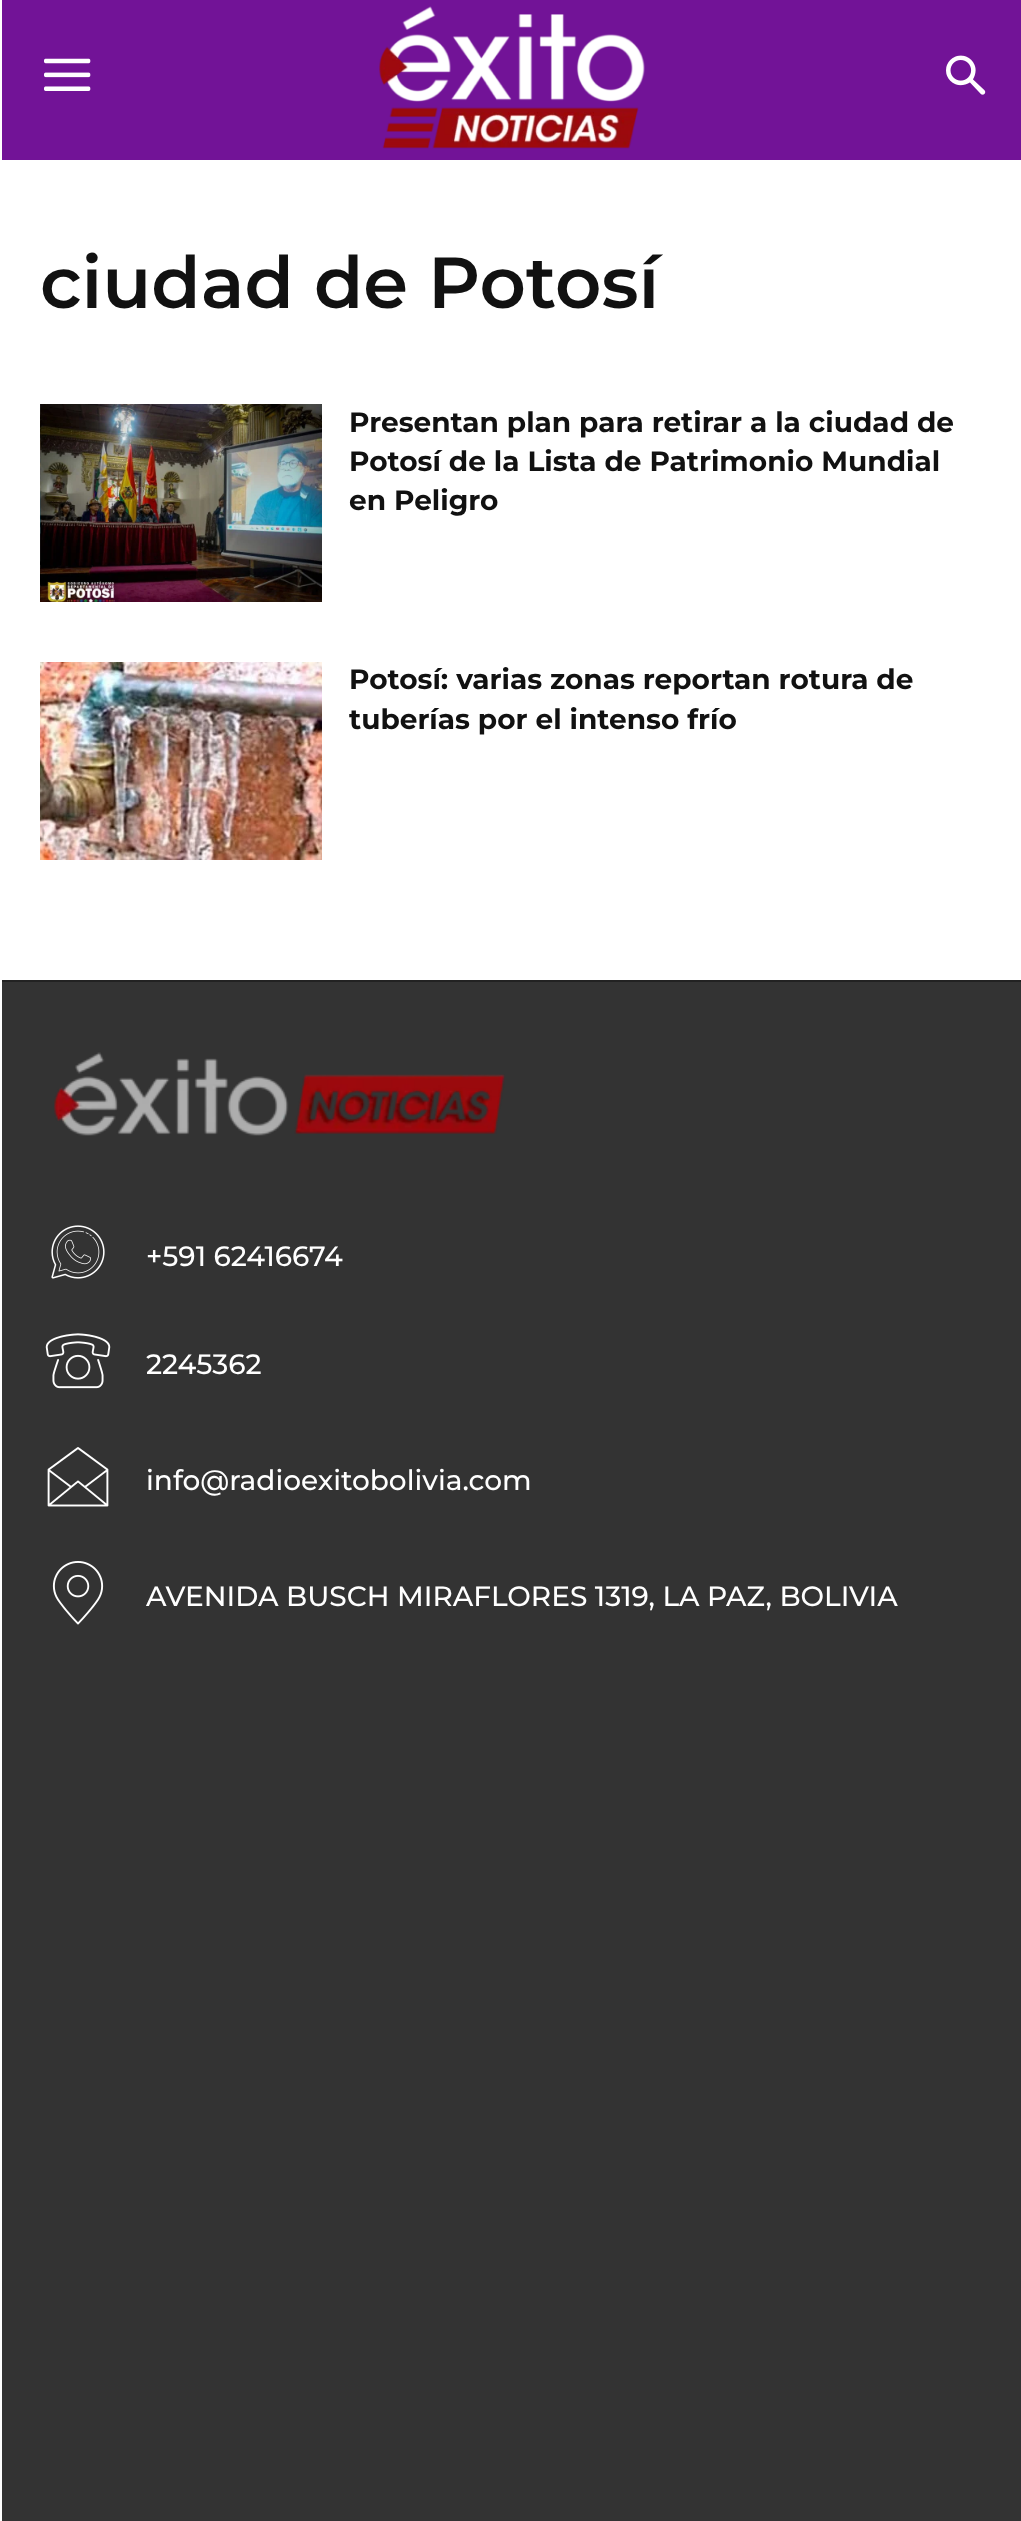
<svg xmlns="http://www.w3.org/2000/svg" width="1021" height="2521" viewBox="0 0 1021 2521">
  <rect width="100%" height="100%" fill="#ffffff"/>
  <rect x="2" y="982" width="1019" height="1539" fill="#333333"/>
  <rect x="2" y="0" width="1019" height="160" fill="#721397"/>
  <image x="44" y="58" width="47" height="33" href="img1.png"/>
  <image x="379" y="6" width="266" height="143" href="img2.png"/>
  <image x="946" y="55" width="40" height="40" href="img3.png"/>
  <text x="40" y="308" font-family="Montserrat" font-size="72" font-weight="600" fill="#111111">ciudad de Potosí</text>
  <image x="40" y="404" width="282" height="198" href="img4.png"/>
  <text x="349" y="432" font-family="Montserrat" font-size="28" font-weight="bold" fill="#111111">Presentan plan para retirar a la ciudad de</text>
  <text x="349" y="471" font-family="Montserrat" font-size="28" font-weight="bold" fill="#111111">Potosí de la Lista de Patrimonio Mundial</text>
  <text x="349" y="510" font-family="Montserrat" font-size="28" font-weight="bold" fill="#111111">en Peligro</text>
  <image x="40" y="662" width="282" height="198" href="img5.png"/>
  <text x="349" y="689" font-family="Montserrat" font-size="28" font-weight="bold" fill="#111111">Potosí: varias zonas reportan rotura de</text>
  <text x="349" y="729" font-family="Montserrat" font-size="28" font-weight="bold" fill="#111111">tuberías por el intenso frío</text>
  <rect x="2" y="980" width="1019" height="2" fill="#222222"/>
  <image x="54" y="1052" width="451" height="84" href="img6.png"/>
  <image x="51" y="1225" width="54" height="54" href="img7.png"/>
  <text x="146" y="1266" font-family="Montserrat" font-size="28" font-weight="500" fill="#ffffff">+591 62416674</text>
  <image x="45" y="1333" width="66" height="56" href="img8.png"/>
  <text x="146" y="1374" font-family="Montserrat" font-size="28" font-weight="500" fill="#ffffff">2245362</text>
  <image x="47" y="1447" width="62" height="60" href="img9.png"/>
  <text x="146" y="1490" font-family="Montserrat" font-size="28" font-weight="500" fill="#ffffff">info@radioexitobolivia.com</text>
  <image x="52" y="1561" width="52" height="64" href="img10.png"/>
  <text x="146" y="1606" font-family="Montserrat" font-size="28" font-weight="500" fill="#ffffff">AVENIDA BUSCH MIRAFLORES 1319, LA PAZ, BOLIVIA</text>
</svg>
